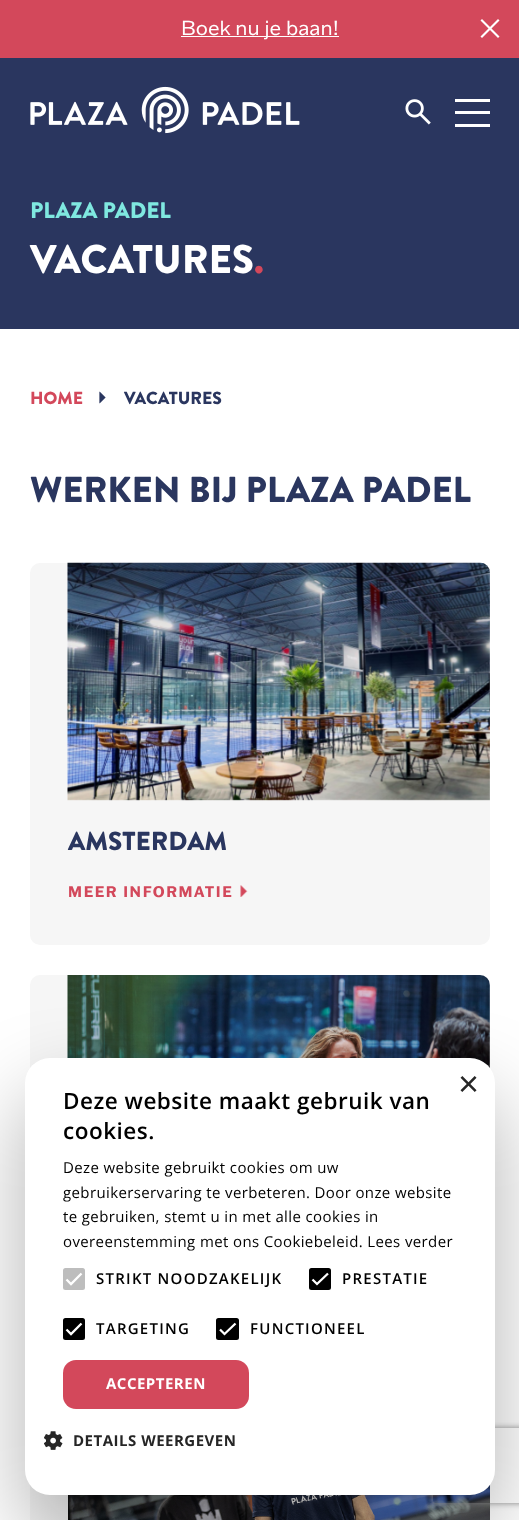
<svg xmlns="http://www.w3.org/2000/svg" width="519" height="1520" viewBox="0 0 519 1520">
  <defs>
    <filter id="blur1" x="-50%" y="-200%" width="200%" height="500%"><feGaussianBlur stdDeviation="42.5"/></filter>
    <clipPath id="clip1"><path d="M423 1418H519V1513H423ZM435.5 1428H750.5C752 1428 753 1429 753 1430.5V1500.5C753 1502 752 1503 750.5 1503H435.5C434 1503 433 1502 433 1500.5V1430.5C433 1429 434 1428 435.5 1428Z" clip-rule="evenodd"/></clipPath>
    <filter id="blur2" x="-50%" y="-200%" width="200%" height="500%"><feGaussianBlur stdDeviation="3"/></filter>
  </defs>
  <rect width="100%" height="100%" fill="#ffffff"/>
  <rect x="0" y="0" width="519" height="58" fill="#d3485b"/>
  <rect x="181" y="36" width="158" height="1" fill="#ffffff"/>
  <text x="181" y="35" font-family="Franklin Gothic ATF" font-size="20" fill="#ffffff">Boek nu je baan!</text>
  <path d="M482 19L499.5 36.5L498 38L480.5 20.5Z" fill="#ffffff"/>
  <path d="M480.5 36.5L498 19L499.5 20.5L482 38Z" fill="#ffffff"/>
  <rect x="0" y="58" width="519" height="271" fill="#2a365f"/>
  <image x="30" y="86" width="270" height="48" href="img1.png"/>
  <image x="405" y="99" width="26" height="26" href="img2.png"/>
  <rect x="455" y="99" width="35" height="3" fill="#ffffff"/>
  <rect x="455" y="111" width="35" height="3" fill="#ffffff"/>
  <rect x="455" y="124" width="35" height="3" fill="#ffffff"/>
  <text x="30" y="218" font-family="Brandon Grotesque" font-size="22.5" font-weight="900" fill="#7fe8e0">PLAZA PADEL</text>
  <text x="30" y="273" font-family="Brandon Grotesque" font-size="40" font-weight="900" fill="#ffffff">VACATURES</text>
  <text x="254" y="273" font-family="Brandon Grotesque" font-size="40" font-weight="900" fill="#d3485b">.</text>
  <text x="30" y="404" font-family="Brandon Grotesque" font-size="17.5" font-weight="900" fill="#d3485b">HOME</text>
  <image x="99" y="391" width="7" height="13" href="img3.png"/>
  <text x="124" y="404" font-family="Brandon Grotesque" font-size="17.5" font-weight="900" fill="#2a365f">VACATURES</text>
  <text x="30" y="502" font-family="Brandon Grotesque" font-size="36" font-weight="900" fill="#2a365f">WERKEN BIJ PLAZA PADEL</text>
  <rect x="30" y="563" width="460" height="382" rx="10" fill="#f6f6f6"/>
  <image x="67" y="562" width="423" height="239" href="img4.png"/>
  <text x="68" y="850" font-family="Brandon Grotesque" font-size="26" font-weight="900" fill="#2a365f">AMSTERDAM</text>
  <text x="68" y="897" font-family="Franklin Gothic ATF" font-size="15" font-weight="bold" letter-spacing="1.5" fill="#d3485b">MEER INFORMATIE</text>
  <image x="240" y="885" width="8" height="12" href="img5.png"/>
  <rect x="30" y="975" width="460" height="381" rx="10" fill="#f6f6f6"/>
  <image x="67" y="975" width="423" height="93" href="img6.png"/>
  <rect x="30" y="1485" width="38" height="35" fill="#f6f6f6"/>
  <image x="68" y="1485" width="422" height="35" href="img7.png"/>
  <rect x="25" y="1098" width="470" height="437" rx="25" fill="#000000" fill-opacity="0.3" filter="url(#blur1)"/>
  <g clip-path="url(#clip1)">
    <rect x="433" y="1428" width="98" height="75" rx="2.5" fill="#808080" filter="url(#blur2)"/>
  </g>
  <rect x="25" y="1058" width="470" height="437" rx="25" fill="#ffffff"/>
  <text x="458" y="1096" font-family="Liberation Sans" font-size="36" fill="#262626">×</text>
  <text x="63" y="1109" font-family="Open Sans" font-size="22.5" font-weight="600" letter-spacing="0.5" fill="#000000">Deze website maakt gebruik van</text>
  <text x="63" y="1139" font-family="Open Sans" font-size="22.5" font-weight="600" letter-spacing="0.5" fill="#000000">cookies.</text>
  <text x="63" y="1173" font-family="Open Sans" font-size="15" letter-spacing="0.38" fill="#000000">Deze website gebruikt cookies om uw</text>
  <text x="63" y="1198" font-family="Open Sans" font-size="15" letter-spacing="0.38" fill="#000000">gebruikerservaring te verbeteren. Door onze website</text>
  <text x="63" y="1222" font-family="Open Sans" font-size="15" letter-spacing="0.38" fill="#000000">te gebruiken, stemt u in met alle cookies in</text>
  <text x="63" y="1247" font-family="Open Sans" font-size="15" letter-spacing="0.38" fill="#000000">overeenstemming met ons Cookiebeleid. Lees verder</text>
  <rect x="63" y="1268" width="22" height="22" rx="2.5" fill="#bdbdbd"/>
  <path d="M66.5 1279.5L71 1284L81.5 1273.5" fill="none" stroke="#ffffff" stroke-width="2.3"/>
  <text x="96" y="1284" font-family="Open Sans" font-size="15" font-weight="600" letter-spacing="1.25" fill="#000000">STRIKT NOODZAKELIJK</text>
  <rect x="310.5" y="1269.5" width="19" height="19" rx="1" fill="#000000" stroke="#000000" stroke-width="3"/>
  <path d="M312.5 1279.5L317 1284L328 1273.5" fill="none" stroke="#ffffff" stroke-width="2.3"/>
  <text x="342" y="1284" font-family="Open Sans" font-size="15" font-weight="600" letter-spacing="1.25" fill="#000000">PRESTATIE</text>
  <rect x="64.5" y="1319.5" width="19" height="19" rx="1" fill="#000000" stroke="#000000" stroke-width="3"/>
  <path d="M66.5 1329.5L71 1334L81.5 1323.5" fill="none" stroke="#ffffff" stroke-width="2.3"/>
  <text x="96" y="1334" font-family="Open Sans" font-size="15" font-weight="600" letter-spacing="1.25" fill="#000000">TARGETING</text>
  <rect x="217.5" y="1319.5" width="20" height="19" rx="1" fill="#000000" stroke="#000000" stroke-width="3"/>
  <path d="M220 1329.5L224.5 1334L235.5 1323.5" fill="none" stroke="#ffffff" stroke-width="2.3"/>
  <text x="250" y="1334" font-family="Open Sans" font-size="15" font-weight="600" letter-spacing="1.25" fill="#000000">FUNCTIONEEL</text>
  <rect x="63" y="1360" width="186" height="49" rx="13" fill="#d3485b"/>
  <text x="106" y="1389" font-family="Open Sans" font-size="15" font-weight="bold" letter-spacing="0.5" fill="#ffffff">ACCEPTEREN</text>
  <image x="44" y="1431" width="19" height="19" href="img8.png"/>
  <text x="73" y="1446" font-family="Open Sans" font-size="15" font-weight="bold" letter-spacing="0.5" fill="#262626">DETAILS WEERGEVEN</text>
</svg>
